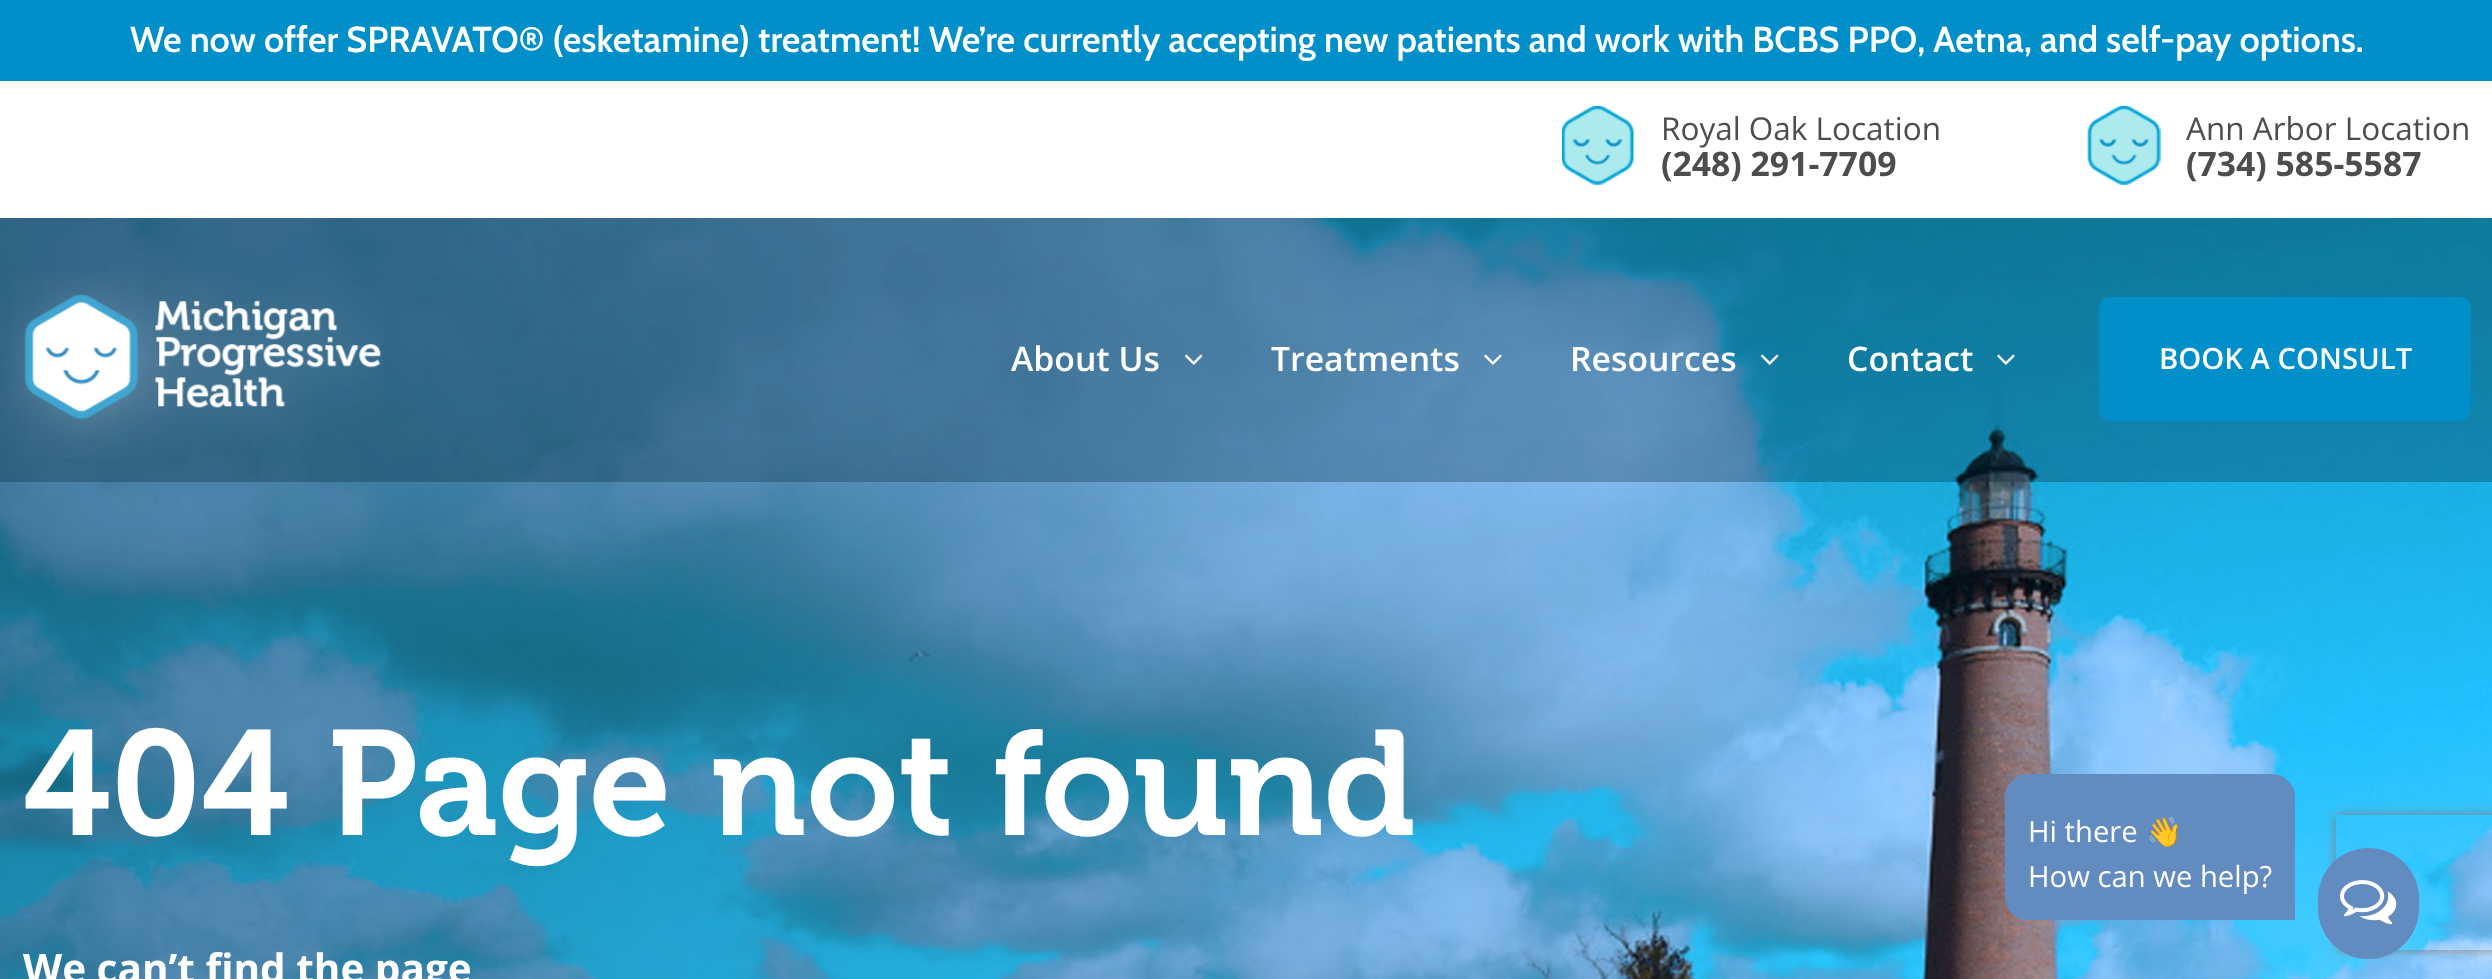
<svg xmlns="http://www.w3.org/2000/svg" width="2492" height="979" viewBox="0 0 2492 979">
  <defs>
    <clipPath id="clip1"><path d="M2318 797H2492V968H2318ZM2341 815H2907C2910 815 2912 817 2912 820V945C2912 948 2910 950 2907 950H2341C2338 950 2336 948 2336 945V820C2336 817 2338 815 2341 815Z" clip-rule="evenodd"/></clipPath>
    <filter id="blur1" x="-50%" y="-200%" width="200%" height="500%"><feGaussianBlur stdDeviation="5.5"/></filter>
  </defs>
  <rect width="100%" height="100%" fill="#ffffff"/>
  <rect x="0" y="0" width="2492" height="81" fill="#008fc8"/>
  <text x="130" y="52" font-family="Cabin" font-size="36" font-weight="600" fill="#ffffff">We now offer SPRAVATO® (esketamine) treatment! We’re currently accepting new patients and work with BCBS PPO, Aetna, and self-pay options.</text>
  <image x="1562" y="106" width="72" height="79" href="img1.png"/>
  <text x="1661" y="140" font-family="Open Sans" font-size="31.5" fill="#4d4d4d">Royal Oak Location</text>
  <text x="1661" y="176" font-family="Open Sans" font-size="33.75" font-weight="bold" fill="#4d4d4d">(248) 291-7709</text>
  <image x="2087" y="106" width="74" height="79" href="img2.png"/>
  <text x="2186" y="140" font-family="Open Sans" font-size="31.5" fill="#4d4d4d">Ann Arbor Location</text>
  <text x="2186" y="176" font-family="Open Sans" font-size="33.75" font-weight="bold" fill="#4d4d4d">(734) 585-5587</text>
  <image x="0" y="218" width="2492" height="761" href="img8.png"/>
  <rect x="0" y="218" width="2492" height="264" fill="#002135" fill-opacity="0.29"/>
  <image x="0" y="272" width="383" height="186" href="img3.png"/>
  <text x="1011" y="371" font-family="Open Sans" font-size="33.75" font-weight="600" fill="#ffffff">About Us</text>
  <image x="1184" y="354" width="19" height="11" href="img4.png"/>
  <text x="1271" y="371" font-family="Open Sans" font-size="33.75" font-weight="600" fill="#ffffff">Treatments</text>
  <image x="1484" y="354" width="18" height="11" href="img5.png"/>
  <text x="1570" y="371" font-family="Open Sans" font-size="33.75" font-weight="600" fill="#ffffff">Resources</text>
  <image x="1760" y="354" width="19" height="11" href="img6.png"/>
  <text x="1847" y="371" font-family="Open Sans" font-size="33.75" font-weight="600" fill="#ffffff">Contact</text>
  <image x="1997" y="354" width="18" height="11" href="img7.png"/>
  <rect x="2099" y="297" width="372" height="124" rx="11" fill="#008fc8"/>
  <text x="2159" y="369" font-family="Open Sans" font-size="29.25" font-weight="600" fill="#ffffff">BOOK A CONSULT</text>
  <text x="23" y="835" font-family="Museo" font-size="148.5" font-weight="600" fill="#ffffff">404 Page not found</text>
  <text x="23" y="983" font-family="Open Sans" font-size="40.5" font-weight="bold" fill="#ffffff">We can’t find the page</text>
  <path d="M2028 774H2272C2284.5 774 2295 784.5 2295 797V920H2028C2015.5 920 2005 909.5 2005 897V797C2005 784.5 2015.5 774 2028 774Z" fill="#628bc0"/>
  <text x="2028" y="842" font-family="Open Sans" font-size="29.25" fill="#ffffff">Hi there</text>
  <text x="2146" y="842" font-family="Noto Color Emoji" font-size="29.25" fill="#ffffff">👋</text>
  <text x="2028" y="887" font-family="Open Sans" font-size="29.25" fill="#ffffff">How can we help?</text>
  <g clip-path="url(#clip1)">
    <rect x="2336" y="815" width="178" height="135" rx="5" fill="#808080" filter="url(#blur1)"/>
  </g>
  <rect x="2318" y="848" width="101" height="111" rx="50.5" fill="#628bc0"/>
  <image x="2340" y="880" width="57" height="45" href="img9.png"/>
</svg>
